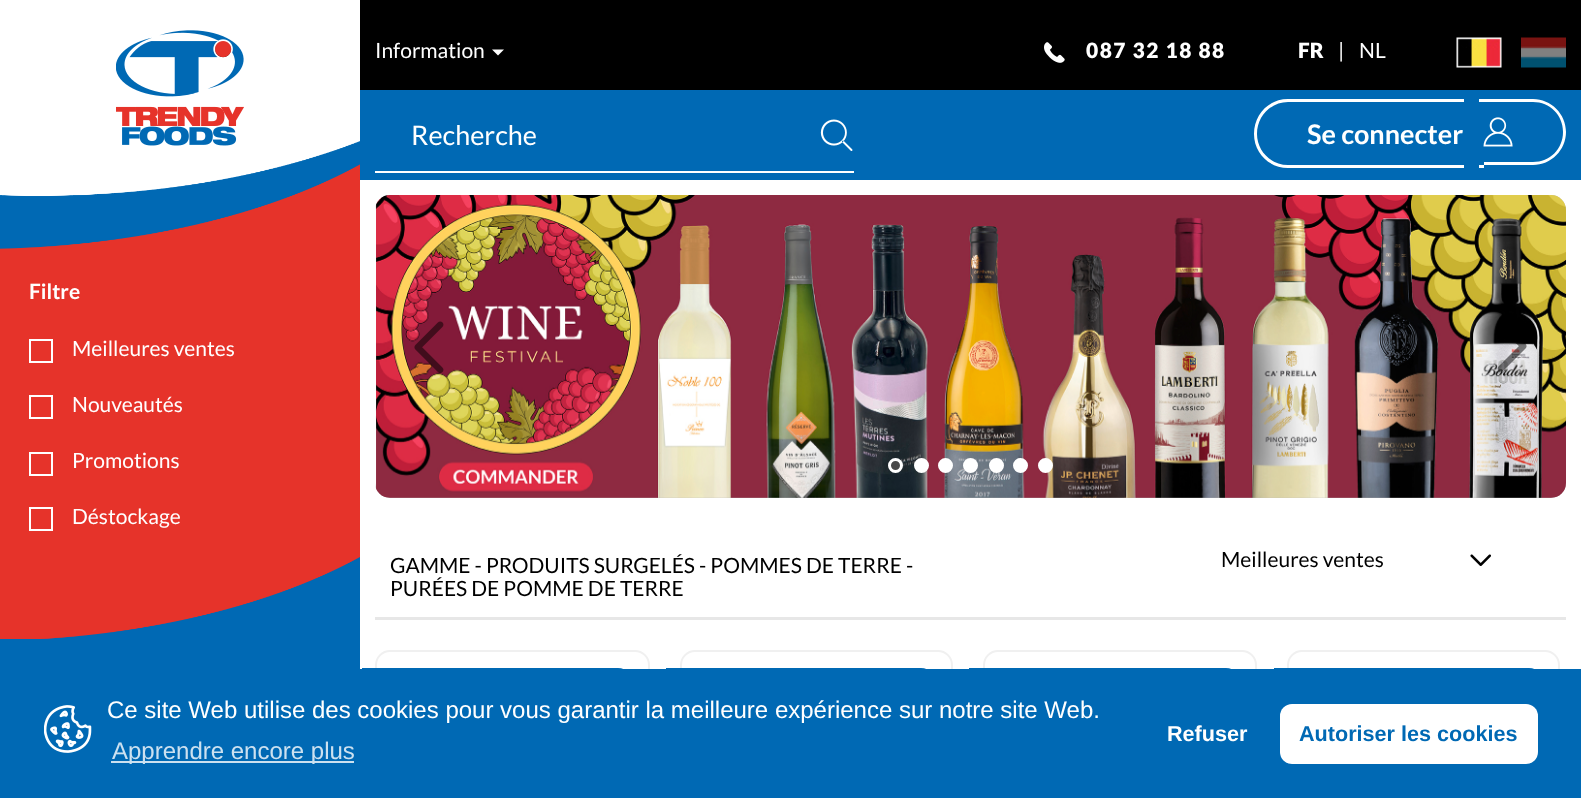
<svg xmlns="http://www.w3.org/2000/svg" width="1581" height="798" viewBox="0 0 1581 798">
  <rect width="100%" height="100%" fill="#ffffff"/>
  <rect x="360" y="0" width="1221" height="90" fill="#000000"/>
  <text x="375" y="58" font-family="Lato" font-size="21" fill="#ffffff">Information</text>
  <path d="M492 49.5H504L498 55.5Z" fill="#ffffff"/>
  <image x="1044" y="42" width="21" height="21" href="img1.png"/>
  <text x="1086" y="58" font-family="Lato" font-size="21" font-weight="900" letter-spacing="1.5" fill="#ffffff">087 32 18 88</text>
  <text x="1298" y="58" font-family="Lato" font-size="21" font-weight="900" fill="#ffffff">FR</text>
  <text x="1338" y="58" font-family="Lato" font-size="21" fill="#ffffff">|</text>
  <text x="1359" y="58" font-family="Lato" font-size="21" fill="#ffffff">NL</text>
  <image x="1456" y="37" width="46" height="31" href="img2.png"/>
  <image x="1521" y="37" width="45" height="31" href="img3.png"/>
  <rect x="360" y="90" width="1221" height="90" fill="#0069b4"/>
  <rect x="375" y="171" width="479" height="2" fill="#ffffff"/>
  <text x="411" y="145" font-family="Lato" font-size="27" fill="#ffffff">Recherche</text>
  <image x="820" y="119" width="33" height="32" href="img4.png"/>
  <path d="M1288 99H1464V168H1288C1269 168 1254 153 1254 134C1254 114 1269 99 1288 99ZM1288 102H1464V165H1288C1271 165 1257 151 1257 134C1257 116 1271 102 1288 102Z" fill="#ffffff" fill-rule="evenodd"/>
  <rect x="1479" y="99" width="5" height="3" fill="#ffffff"/>
  <rect x="1479" y="165" width="5" height="3" fill="#ffffff"/>
  <path d="M1484 99H1533C1551 99 1566 114 1566 132C1566 150 1551 165 1533 165H1484ZM1484 102H1533C1550 102 1563 115 1563 132C1563 149 1550 162 1533 162H1484Z" fill="#ffffff" fill-rule="evenodd"/>
  <text x="1307" y="144" font-family="Lato" font-size="27" font-weight="bold" fill="#ffffff">Se connecter</text>
  <image x="1483" y="117" width="30" height="30" href="img5.png"/>
  <image x="116" y="30" width="128" height="116" href="img6.png"/>
  <rect x="0" y="249" width="360" height="308" fill="#e6332a"/>
  <image x="0" y="141" width="360" height="108" href="img7.png"/>
  <text x="29" y="299" font-family="Lato" font-size="21" font-weight="bold" fill="#ffffff">Filtre</text>
  <rect x="30" y="340" width="22" height="22" fill="none" stroke="#ffffff" stroke-width="2"/>
  <text x="72" y="356" font-family="Lato" font-size="21" fill="#ffffff">Meilleures ventes</text>
  <rect x="30" y="396" width="22" height="22" fill="none" stroke="#ffffff" stroke-width="2"/>
  <text x="72" y="412" font-family="Lato" font-size="21" fill="#ffffff">Nouveautés</text>
  <rect x="30" y="453" width="22" height="22" fill="none" stroke="#ffffff" stroke-width="2"/>
  <text x="72" y="468" font-family="Lato" font-size="21" fill="#ffffff">Promotions</text>
  <rect x="30" y="508" width="22" height="22" fill="none" stroke="#ffffff" stroke-width="2"/>
  <text x="72" y="524" font-family="Lato" font-size="21" fill="#ffffff">Déstockage</text>
  <rect x="0" y="639" width="360" height="30" fill="#0069b4"/>
  <image x="0" y="557" width="360" height="82" href="img8.png"/>
  <rect x="375" y="195" width="1191" height="303" rx="15" fill="#bdbdbd"/>
  <image x="375" y="195" width="1191" height="303" href="img9.png"/>
  <image x="414" y="321" width="30" height="52" href="img10.png"/>
  <image x="1497" y="343" width="30" height="29" href="img11.png"/>
  <circle cx="895.5" cy="465.5" r="6" fill="#4a4a4a" stroke="#ffffff" stroke-width="3"/>
  <circle cx="921.5" cy="465.5" r="6" fill="#ffffff" stroke="#ffffff" stroke-width="3"/>
  <circle cx="945.5" cy="465.5" r="6" fill="#ffffff" stroke="#ffffff" stroke-width="3"/>
  <circle cx="970.5" cy="465.5" r="6" fill="#ffffff" stroke="#ffffff" stroke-width="3"/>
  <circle cx="996.5" cy="465.5" r="6" fill="#ffffff" stroke="#ffffff" stroke-width="3"/>
  <circle cx="1020.5" cy="465.5" r="6" fill="#ffffff" stroke="#ffffff" stroke-width="3"/>
  <circle cx="1045.5" cy="465.5" r="6" fill="#ffffff" stroke="#ffffff" stroke-width="3"/>
  <rect x="375" y="617" width="1191" height="3" fill="#e7e7e7"/>
  <text x="390" y="573" font-family="Lato" font-size="21" fill="#000000">GAMME - PRODUITS SURGELÉS - POMMES DE TERRE -</text>
  <text x="390" y="596" font-family="Lato" font-size="21" fill="#000000">PURÉES DE POMME DE TERRE</text>
  <text x="1221" y="567" font-family="Lato" font-size="21" fill="#000000">Meilleures ventes</text>
  <image x="1470" y="554" width="21" height="12" href="img12.png"/>
  <rect x="376" y="651" width="273" height="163" rx="14" fill="none" stroke="#f0f0f0" stroke-width="2"/>
  <path d="M362 668H618C626.5 668 633 674.5 633 683C633 691.5 626.5 698 618 698H362Z" fill="#0069b4"/>
  <rect x="681" y="651" width="271" height="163" rx="14" fill="none" stroke="#f0f0f0" stroke-width="2"/>
  <path d="M666 668H921C929.5 668 936 674.5 936 683C936 691.5 929.5 698 921 698H666Z" fill="#0069b4"/>
  <rect x="984" y="651" width="272" height="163" rx="14" fill="none" stroke="#f0f0f0" stroke-width="2"/>
  <path d="M969 668H1226C1234.5 668 1241 674.5 1241 683C1241 691.5 1234.5 698 1226 698H969Z" fill="#0069b4"/>
  <rect x="1288" y="651" width="271" height="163" rx="14" fill="none" stroke="#f0f0f0" stroke-width="2"/>
  <path d="M1274 668H1529C1537.5 668 1544 674.5 1544 683C1544 691.5 1537.5 698 1529 698H1274Z" fill="#0069b4"/>
  <rect x="0" y="669" width="1581" height="129" fill="#0069b4"/>
  <image x="44" y="705" width="48" height="48" href="img13.png"/>
  <text x="107" y="718" font-family="Liberation Sans" font-size="24" fill="#ffffff">Ce site Web utilise des cookies pour vous garantir la meilleure expérience sur notre site Web.</text>
  <rect x="111" y="761" width="243" height="2" fill="#cce1f0"/>
  <text x="112" y="759" font-family="Liberation Sans" font-size="24" fill="#cce1f0">Apprendre encore plus</text>
  <text x="1167" y="741" font-family="Liberation Sans" font-size="21.6" font-weight="bold" fill="#ffffff">Refuser</text>
  <rect x="1280" y="704" width="258" height="60" rx="12" fill="#ffffff"/>
  <text x="1299" y="741" font-family="Liberation Sans" font-size="21.6" font-weight="bold" fill="#0069b4">Autoriser les cookies</text>
</svg>
